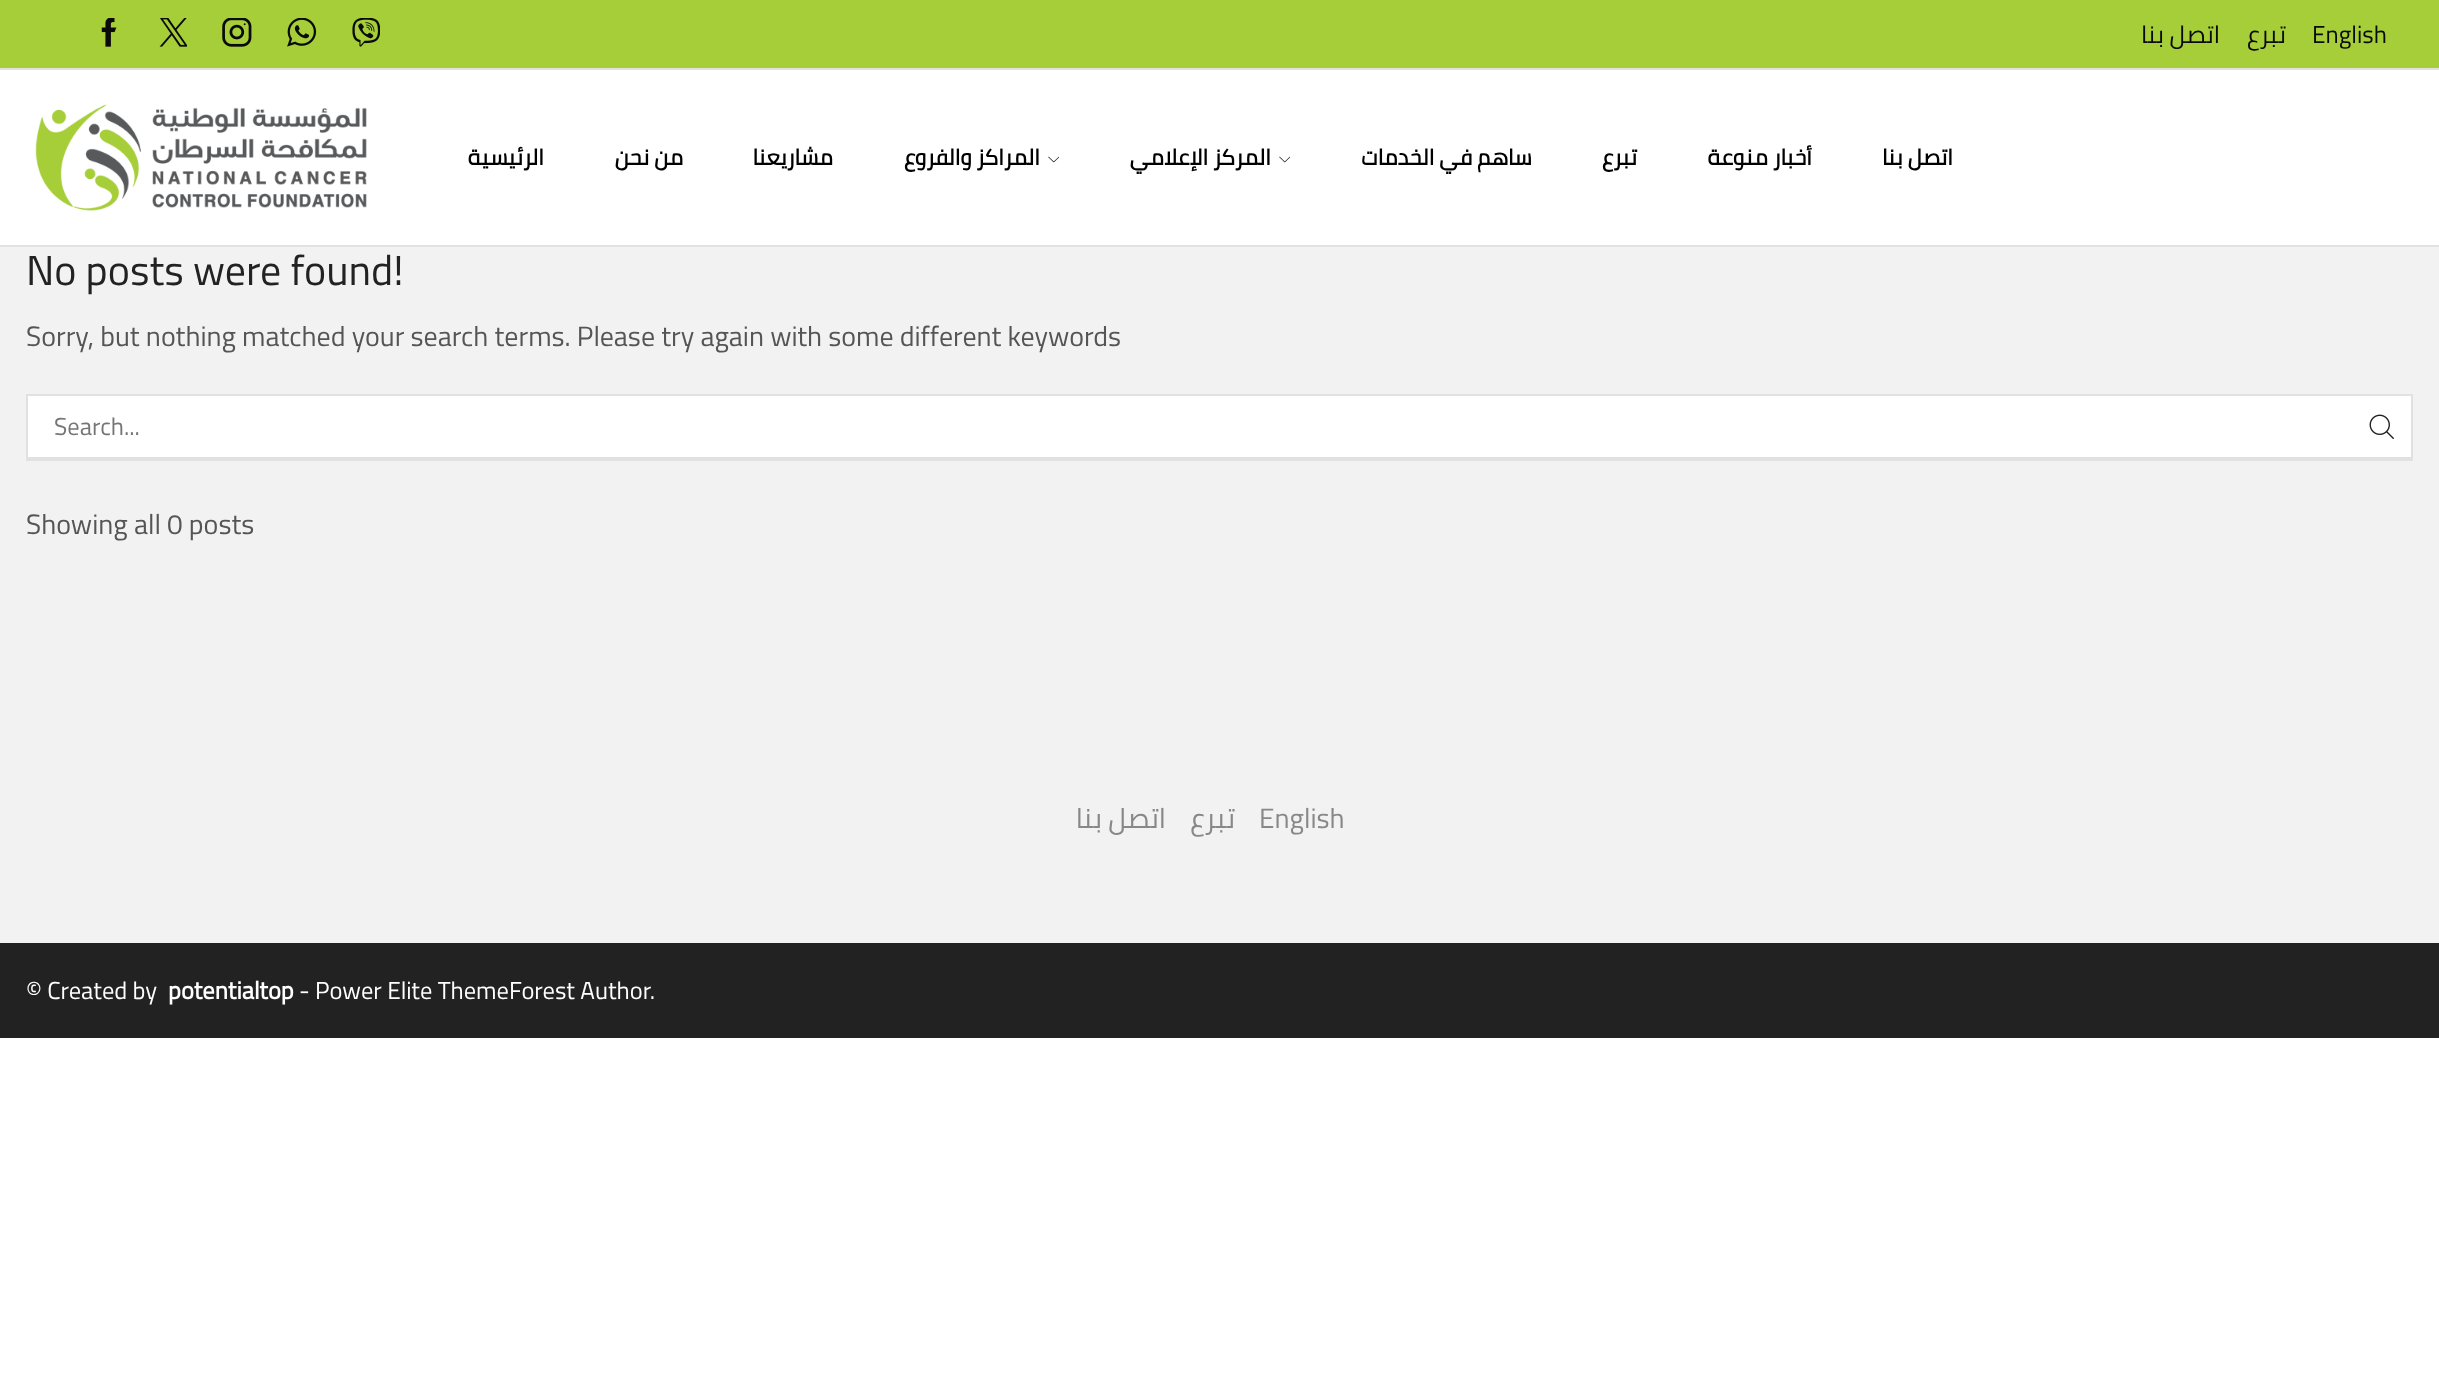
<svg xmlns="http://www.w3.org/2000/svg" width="2439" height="1397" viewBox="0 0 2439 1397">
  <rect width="100%" height="100%" fill="#ffffff"/>
  <rect x="0" y="247" width="2439" height="696" fill="#f2f2f2"/>
  <rect x="0" y="0" width="2439" height="68" fill="#a6ce39"/>
  <rect x="0" y="68" width="2439" height="2" fill="#e1e1e1"/>
  <image x="101" y="18" width="16" height="29" href="img1.png"/>
  <image x="159" y="18" width="28" height="29" href="img2.png"/>
  <image x="222" y="18" width="30" height="29" href="img3.png"/>
  <image x="287" y="18" width="30" height="29" href="img4.png"/>
  <image x="352" y="18" width="28" height="29" href="img5.png"/>
  <text x="2220" y="43" font-family="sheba" font-size="24.5" direction="rtl" fill="#0a0a0a">اتصل بنا</text>
  <text x="2286" y="43" font-family="sheba" font-size="24.5" direction="rtl" fill="#0a0a0a">تبرع</text>
  <text x="2312" y="43" font-family="sheba" font-size="24.5" fill="#0a0a0a">English</text>
  <rect x="0" y="245" width="2439" height="2" fill="#e1e1e1"/>
  <image x="35" y="104" width="332" height="107" href="img6.png"/>
  <text x="544" y="165" font-family="sheba" font-size="22" font-weight="bold" direction="rtl" fill="#000000">الرئيسية</text>
  <text x="683" y="165" font-family="sheba" font-size="22" font-weight="bold" direction="rtl" fill="#000000">من نحن</text>
  <text x="833" y="165" font-family="sheba" font-size="22" font-weight="bold" direction="rtl" fill="#000000">مشاريعنا</text>
  <text x="1040" y="165" font-family="sheba" font-size="22" font-weight="bold" direction="rtl" fill="#000000">المراكز والفروع</text>
  <image x="1048" y="156" width="11" height="7" href="img7.png"/>
  <text x="1271" y="165" font-family="sheba" font-size="22" font-weight="bold" direction="rtl" fill="#000000">المركز الإعلامي</text>
  <image x="1279" y="156" width="11" height="7" href="img7.png"/>
  <text x="1532" y="165" font-family="sheba" font-size="22" font-weight="bold" direction="rtl" fill="#000000">ساهم في الخدمات</text>
  <text x="1637" y="165" font-family="sheba" font-size="22" font-weight="bold" direction="rtl" fill="#000000">تبرع</text>
  <text x="1812" y="165" font-family="sheba" font-size="22" font-weight="bold" direction="rtl" fill="#000000">أخبار منوعة</text>
  <text x="1953" y="165" font-family="sheba" font-size="22" font-weight="bold" direction="rtl" fill="#000000">اتصل بنا</text>
  <text x="26" y="285" font-family="sheba" font-size="42" fill="#222222">No posts were found!</text>
  <text x="26" y="346" font-family="sheba" font-size="28" fill="#555555">Sorry, but nothing matched your search terms. Please try again with some different keywords</text>
  <rect x="27" y="395" width="2385" height="63" fill="#ffffff" stroke="#e1e1e1" stroke-width="2"/>
  <text x="54" y="435" font-family="sheba" font-size="24.5" fill="#757575">Search...</text>
  <image x="2369" y="414" width="25" height="25" href="img8.png"/>
  <rect x="26" y="459" width="2387" height="2" fill="#e1e1e1"/>
  <text x="26" y="534" font-family="sheba" font-size="28" fill="#555555">Showing all 0 posts</text>
  <text x="1166" y="828" font-family="sheba" font-size="28" direction="rtl" fill="#888888">اتصل بنا</text>
  <text x="1235" y="828" font-family="sheba" font-size="28" direction="rtl" fill="#888888">تبرع</text>
  <text x="1259" y="828" font-family="sheba" font-size="28" fill="#888888">English</text>
  <rect x="0" y="943" width="2439" height="95" fill="#222222"/>
  <text x="26" y="999" font-family="sheba" font-size="24.5" fill="#ffffff">© Created by</text>
  <text x="168" y="999" font-family="sheba" font-size="24.5" font-weight="bold" fill="#ffffff">potentialtop</text>
  <text x="299" y="999" font-family="sheba" font-size="24.5" fill="#ffffff">- Power Elite ThemeForest Author.</text>
</svg>
